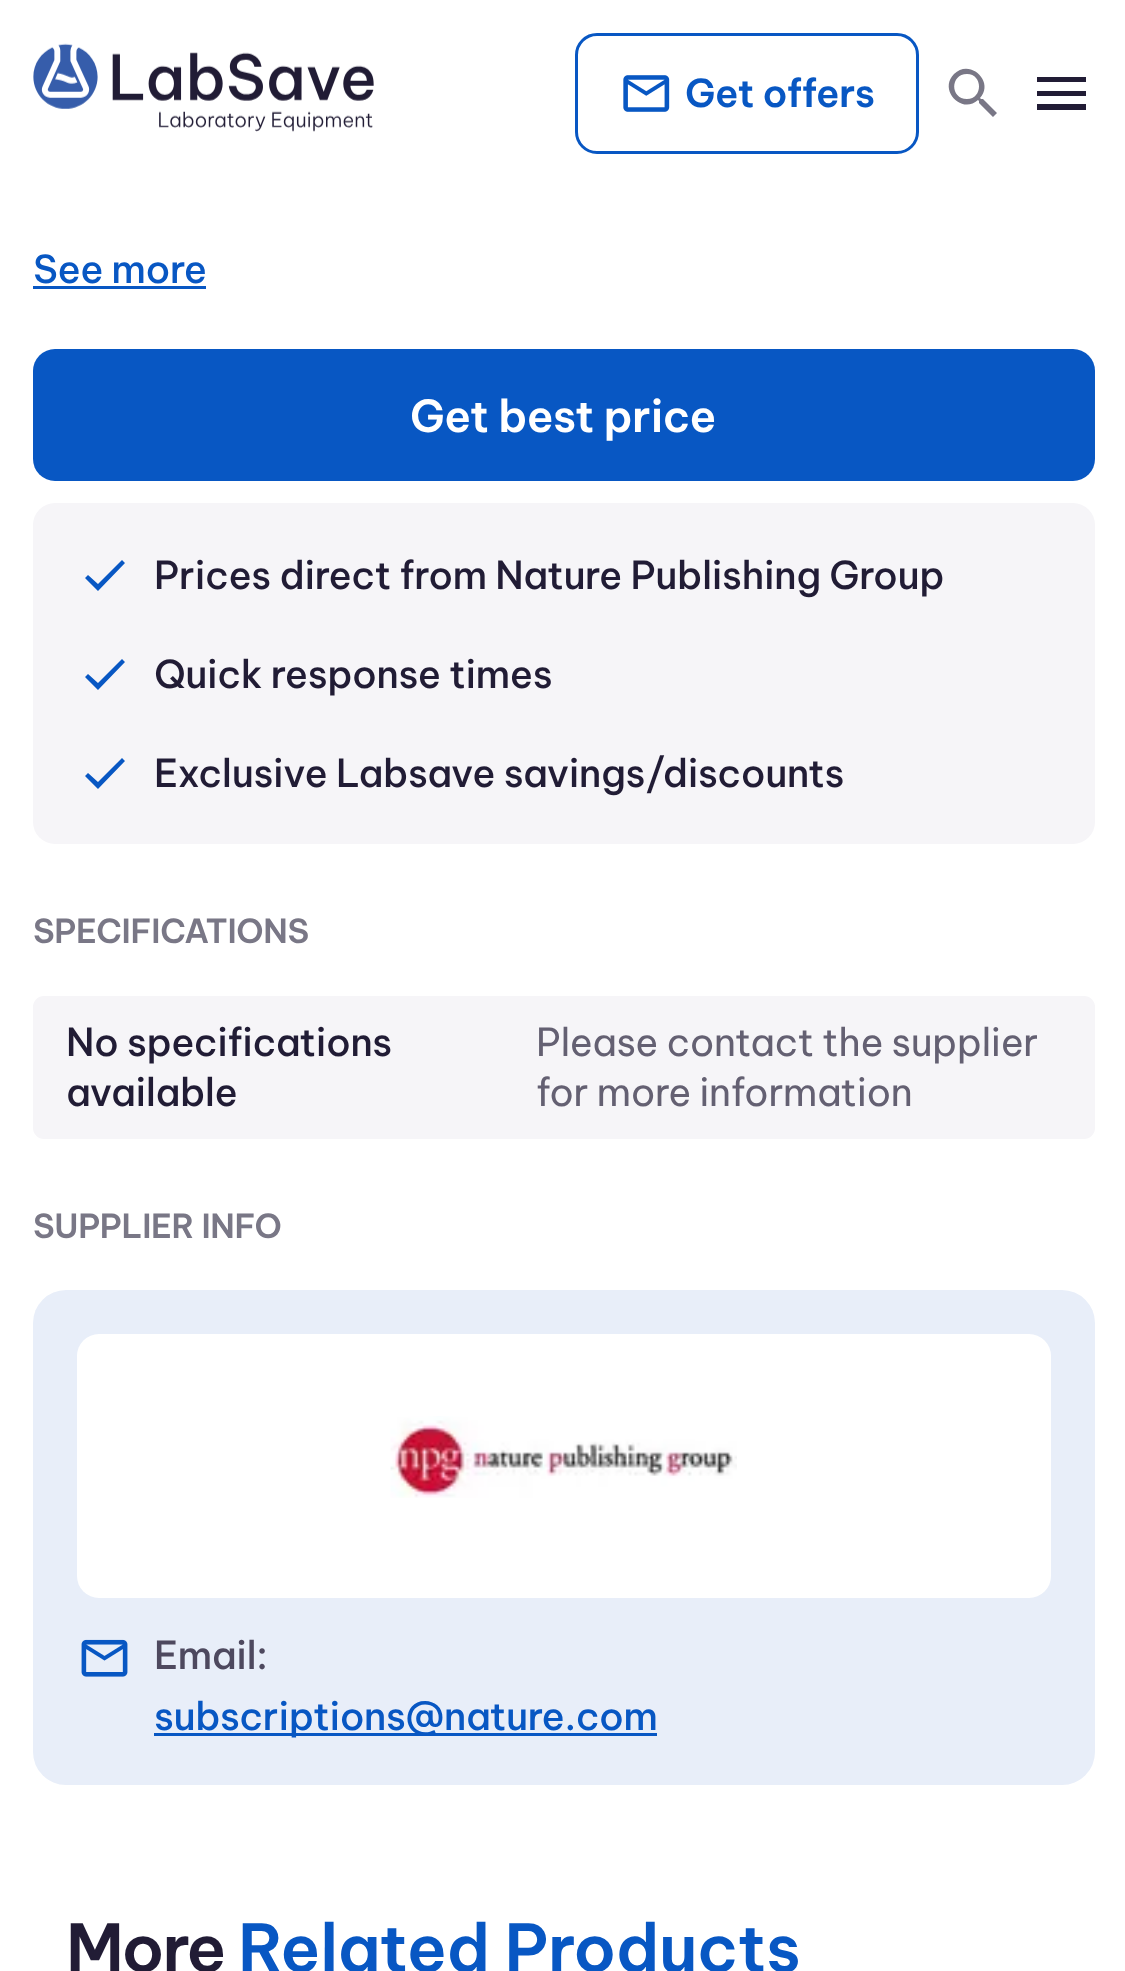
<svg xmlns="http://www.w3.org/2000/svg" width="1125" height="1971" viewBox="0 0 1125 1971">
  <rect width="100%" height="100%" fill="#ffffff"/>
  <image x="33" y="43" width="341" height="89" href="img1.png"/>
  <rect x="576.5" y="34.5" width="341" height="118" rx="20.5" fill="none" stroke="#0857c3" stroke-width="3"/>
  <image x="623" y="75" width="47" height="37" href="img2.png"/>
  <text x="685" y="107" font-family="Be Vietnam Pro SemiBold" font-size="38.5" font-weight="600" letter-spacing="-0.4" fill="#0857c3">Get offers</text>
  <path d="M983 99H981L980 98C995 82 970 58 954 74C938 90 962 115 978 100L979 101V103L993 117L997 113ZM967 99C950 99 950 74 967 74C983 74 983 99 967 99" fill="#797786"/>
  <path d="M1037 110H1086V104H1037ZM1037 96H1086V91H1037ZM1037 77V82H1086V77Z" fill="#211c35"/>
  <text x="33" y="283" font-family="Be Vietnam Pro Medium" font-size="38.5" font-weight="500" letter-spacing="-0.4" fill="#0857c3">See more</text>
  <rect x="33" y="286" width="173" height="3" fill="#0857c3"/>
  <rect x="33" y="349" width="1062" height="132" rx="22" fill="#0857c3"/>
  <text x="410" y="432" font-family="Be Vietnam Pro SemiBold" font-size="44" font-weight="600" letter-spacing="-0.5" fill="#ffffff">Get best price</text>
  <rect x="33" y="503" width="1062" height="341" rx="22" fill="#f6f5f8"/>
  <path d="M98 584L88 575L85 578L98 591L125 563L122 560Z" fill="#0857c3"/>
  <text x="154" y="589" font-family="Be Vietnam Pro Medium" font-size="38.5" font-weight="500" letter-spacing="-0.35" fill="#211c35">Prices direct from Nature Publishing Group</text>
  <path d="M98 683L88 674L85 677L98 690L125 662L122 659Z" fill="#0857c3"/>
  <text x="154" y="688" font-family="Be Vietnam Pro Medium" font-size="38.5" font-weight="500" letter-spacing="-0.35" fill="#211c35">Quick response times</text>
  <path d="M98 782L88 773L85 776L98 789L125 761L122 758Z" fill="#0857c3"/>
  <text x="154" y="787" font-family="Be Vietnam Pro Medium" font-size="38.5" font-weight="500" letter-spacing="-0.35" fill="#211c35">Exclusive Labsave savings/discounts</text>
  <text x="33" y="943" font-family="Be Vietnam Pro SemiBold" font-size="33" font-weight="600" letter-spacing="-0.35" fill="#797786">SPECIFICATIONS</text>
  <rect x="33" y="996" width="1062" height="143" rx="11" fill="#f6f5f8"/>
  <text x="66" y="1056" font-family="Be Vietnam Pro Medium" font-size="38.5" font-weight="500" letter-spacing="-0.4" fill="#211c35">No specifications</text>
  <text x="66" y="1106" font-family="Be Vietnam Pro Medium" font-size="38.5" font-weight="500" letter-spacing="-0.4" fill="#211c35">available</text>
  <text x="536" y="1056" font-family="Be Vietnam Pro" font-size="38.5" letter-spacing="-0.4" fill="#646072">Please contact the supplier</text>
  <text x="536" y="1106" font-family="Be Vietnam Pro" font-size="38.5" letter-spacing="-0.4" fill="#646072">for more information</text>
  <text x="33" y="1238" font-family="Be Vietnam Pro SemiBold" font-size="33" font-weight="600" letter-spacing="-0.35" fill="#797786">SUPPLIER INFO</text>
  <rect x="33" y="1290" width="1062" height="495" rx="33" fill="#e8eef9"/>
  <rect x="77" y="1334" width="974" height="264" rx="22" fill="#ffffff"/>
  <image x="390" y="1416" width="347" height="82" href="img3.png"/>
  <image x="81" y="1639" width="47" height="38" href="img4.png"/>
  <text x="154" y="1669" font-family="Be Vietnam Pro Medium" font-size="38.5" font-weight="500" letter-spacing="-0.4" fill="#4e495f">Email:</text>
  <rect x="154" y="1733" width="503" height="3" fill="#0857c3"/>
  <text x="154" y="1730" font-family="Be Vietnam Pro Medium" font-size="38.5" font-weight="500" letter-spacing="-0.4" fill="#0857c3">subscriptions@nature.com</text>
  <text x="66" y="1972" font-family="Be Vietnam Pro SemiBold" font-size="66" font-weight="600" letter-spacing="-2" fill="#211c35">More</text>
  <text x="238" y="1972" font-family="Be Vietnam Pro SemiBold" font-size="66" font-weight="600" letter-spacing="-0.4" fill="#0857c3">Related Products</text>
</svg>
